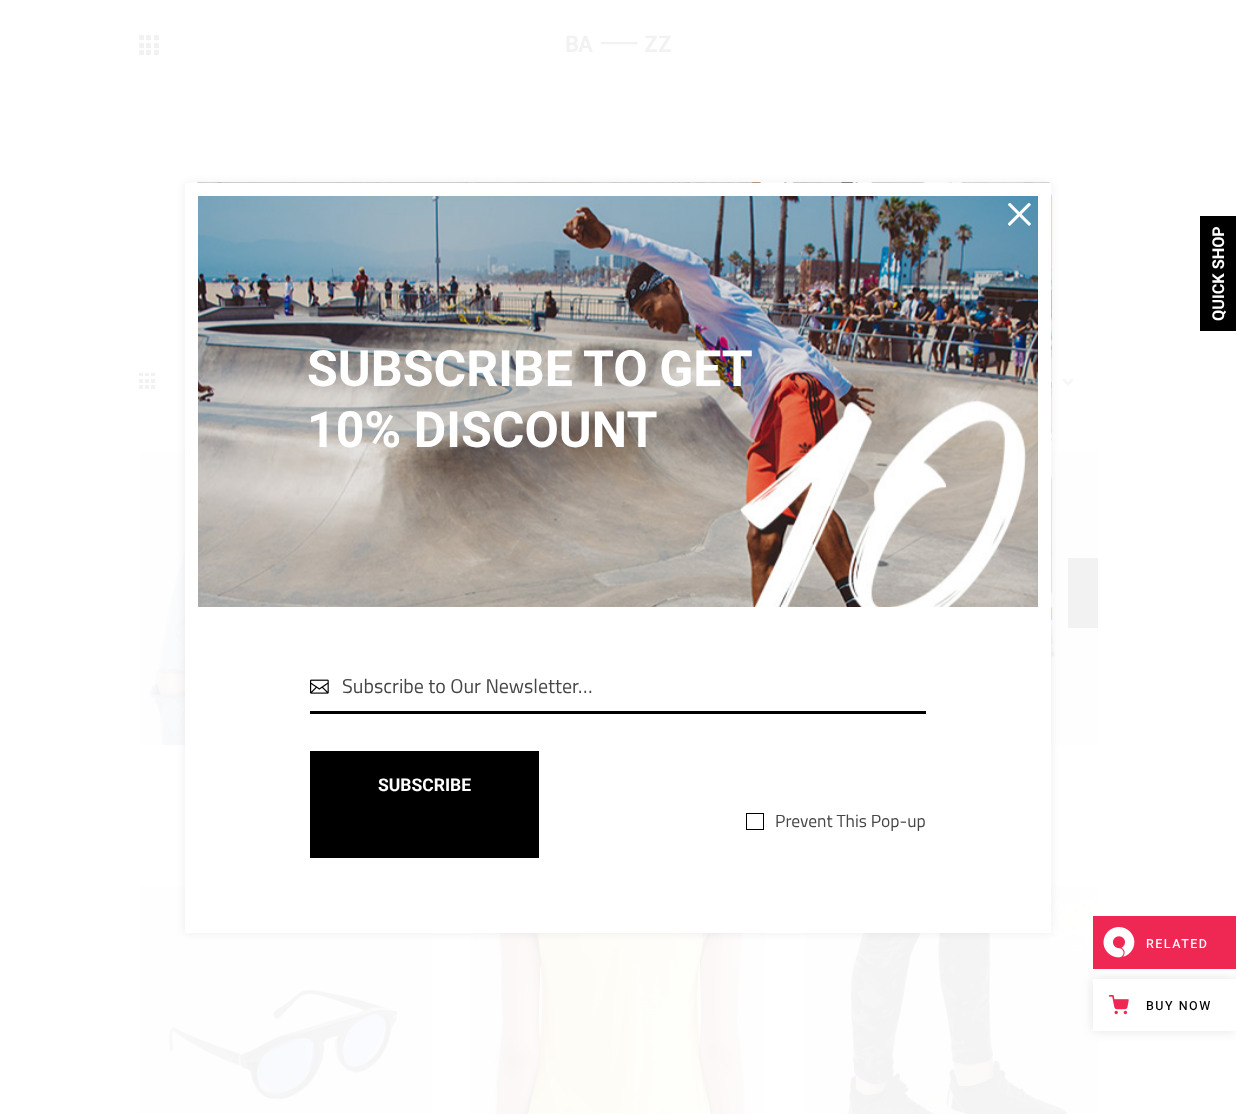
<svg xmlns="http://www.w3.org/2000/svg" width="1236" height="1114" viewBox="0 0 1236 1114">
  <defs>
    <filter id="blur1" x="-50%" y="-200%" width="200%" height="500%"><feGaussianBlur stdDeviation="4.5"/></filter>
    <filter id="blur2" x="-50%" y="-200%" width="200%" height="500%"><feGaussianBlur stdDeviation="6"/></filter>
  </defs>
  <rect width="100%" height="100%" fill="#ffffff"/>
  <rect x="1200" y="216" width="36" height="115" fill="#000000"/>
  <text x="1224" y="321" transform="rotate(-90 1224 321)" font-family="Roboto" font-size="16.25" font-weight="bold" fill="#ffffff">QUICK SHOP</text>
  <image x="139" y="35" width="20" height="20" href="img1.png"/>
  <image x="566" y="35" width="106" height="17" href="img2.png"/>
  <image x="1062" y="378" width="12" height="8" href="img7.png"/>
  <image x="138" y="451" width="47" height="294" href="img8.png"/>
  <image x="1051" y="451" width="47" height="294" href="img9.png"/>
  <image x="139" y="886" width="293" height="228" href="img10.png"/>
  <image x="471" y="933" width="294" height="181" href="img11.png"/>
  <image x="805" y="886" width="293" height="228" href="img12.png"/>
  <rect x="185" y="183" width="866" height="750" fill="#000000" fill-opacity="0.07" filter="url(#blur1)"/>
  <image x="185" y="182" width="867" height="438" href="img3.png"/>
  <rect x="191.5" y="189.5" width="853" height="424" fill="none" stroke="#ffffff" stroke-width="13"/>
  <image x="1008" y="203" width="23" height="23" href="img4.png"/>
  <rect x="185" y="620" width="866" height="313" fill="#ffffff"/>
  <text x="307" y="386" word-spacing="-1" font-family="Roboto" font-size="50" font-weight="bold" fill="#ffffff">SUBSCRIBE TO GET</text>
  <text x="307" y="447" font-family="Roboto" font-size="50" font-weight="bold" fill="#ffffff">10% DISCOUNT</text>
  <image x="310" y="679" width="19" height="15" href="img5.png"/>
  <rect x="310" y="711" width="616" height="3" fill="#000000"/>
  <text x="342" y="693" font-family="Titillium Web" font-size="20" fill="#464646">Subscribe to Our Newsletter…</text>
  <rect x="311.5" y="752.5" width="226" height="104" fill="none" stroke="#000000" stroke-width="3"/>
  <rect x="313" y="754" width="223" height="101" fill="#000000"/>
  <text x="378" y="791" font-family="Roboto" font-size="17.5" font-weight="bold" fill="#ffffff">SUBSCRIBE</text>
  <rect x="746.5" y="813.5" width="17" height="16" fill="none" stroke="#000000"/>
  <text x="775" y="827" font-family="Titillium Web" font-size="17.5" fill="#464646">Prevent This Pop-up</text>
  <image x="139" y="373" width="16" height="16" href="img6.png"/>
  <rect x="1068" y="558" width="30" height="70" fill="#f2f2f2"/>
  <rect x="1093" y="916" width="143" height="53" fill="#ef2853"/>
  <image x="1103" y="927" width="32" height="31" href="img13.png"/>
  <text x="1146" y="948" font-family="Heebo" font-size="12.5" font-weight="500" letter-spacing="1.5" fill="#ffffff">RELATED</text>
  <rect x="1093" y="979" width="143" height="52" fill="#000000" fill-opacity="0.1" filter="url(#blur2)"/>
  <rect x="1093" y="979" width="143" height="52" fill="#ffffff"/>
  <image x="1109" y="995" width="20" height="20" href="img14.png"/>
  <text x="1146" y="1010" font-family="Heebo" font-size="12.5" font-weight="500" letter-spacing="1.5" fill="#000000">BUY NOW</text>
</svg>
